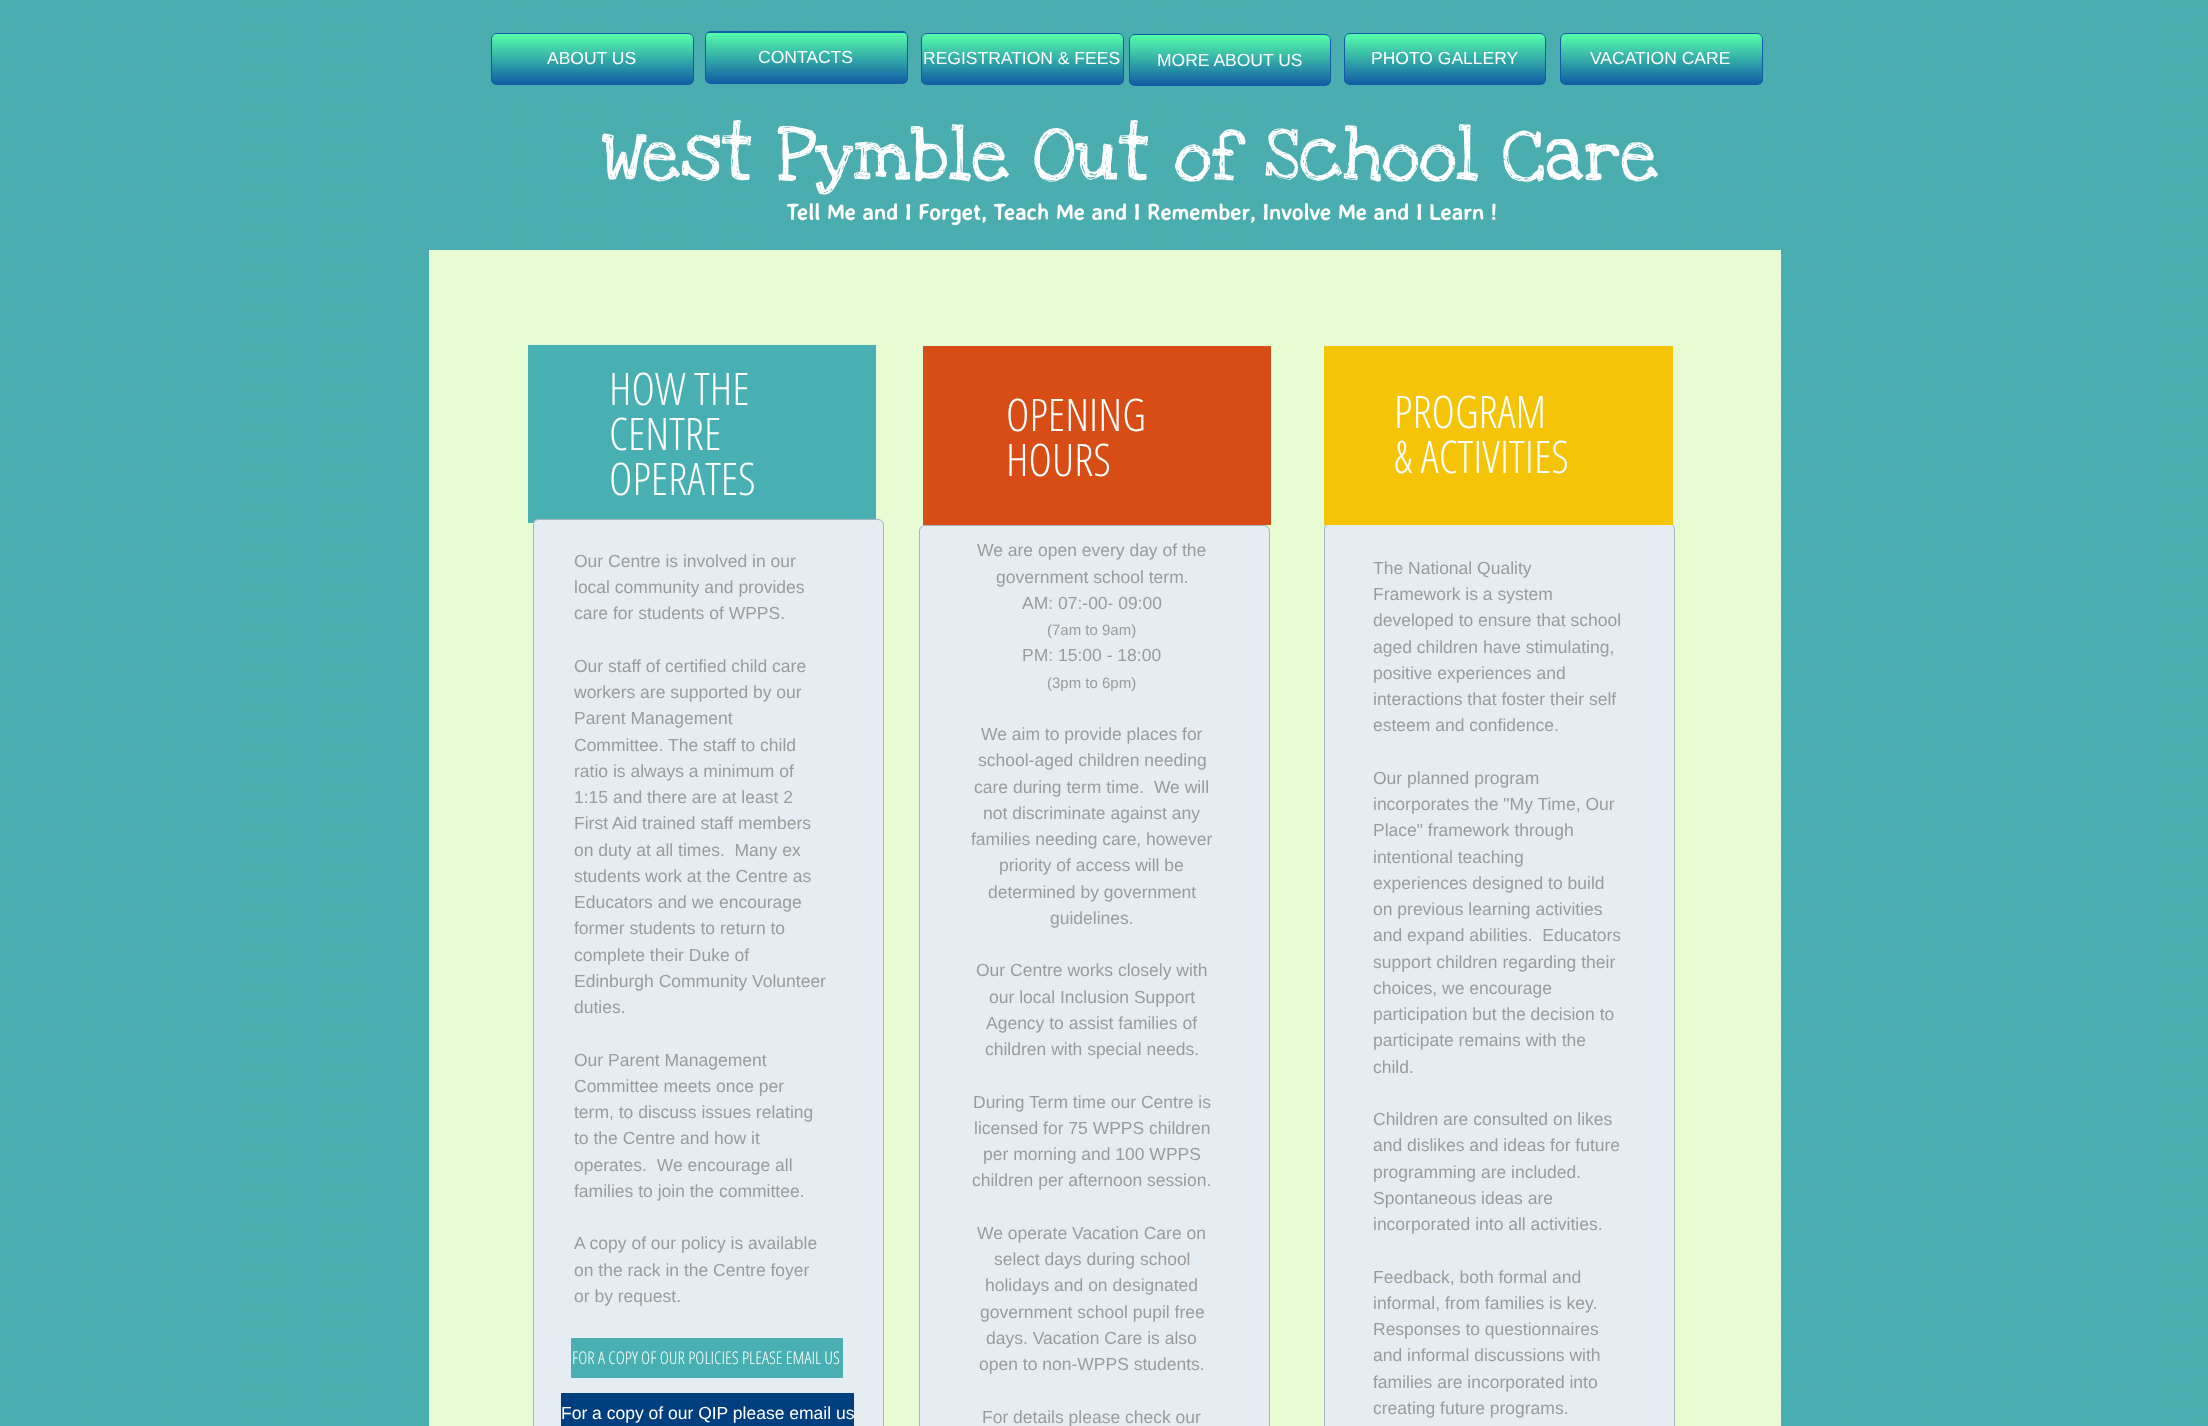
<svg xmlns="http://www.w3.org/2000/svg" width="2208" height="1426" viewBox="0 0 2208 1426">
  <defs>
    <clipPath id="clip1"><rect x="491" y="33" width="203" height="52" rx="6"/></clipPath>
    <linearGradient id="g1" gradientUnits="userSpaceOnUse" x1="593" y1="34" x2="593" y2="84"><stop offset="0" stop-color="#56ffaa"/><stop offset="1" stop-color="#125ca6"/></linearGradient>
    <clipPath id="clip2"><rect x="705" y="31" width="203" height="53" rx="6"/></clipPath>
    <linearGradient id="g2" gradientUnits="userSpaceOnUse" x1="806" y1="-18" x2="806" y2="33"><stop offset="0" stop-color="#56ffaa"/><stop offset="1" stop-color="#125ca6"/></linearGradient>
    <linearGradient id="g3" gradientUnits="userSpaceOnUse" x1="806" y1="32" x2="806" y2="83"><stop offset="0" stop-color="#56ffaa"/><stop offset="1" stop-color="#125ca6"/></linearGradient>
    <clipPath id="clip3"><rect x="921" y="33" width="203" height="52" rx="6"/></clipPath>
    <linearGradient id="g4" gradientUnits="userSpaceOnUse" x1="1023" y1="34" x2="1023" y2="84"><stop offset="0" stop-color="#56ffaa"/><stop offset="1" stop-color="#125ca6"/></linearGradient>
    <clipPath id="clip4"><rect x="1129" y="34" width="202" height="52" rx="6"/></clipPath>
    <linearGradient id="g5" gradientUnits="userSpaceOnUse" x1="1230" y1="35" x2="1230" y2="85"><stop offset="0" stop-color="#56ffaa"/><stop offset="1" stop-color="#125ca6"/></linearGradient>
    <clipPath id="clip5"><rect x="1344" y="33" width="202" height="52" rx="6"/></clipPath>
    <linearGradient id="g6" gradientUnits="userSpaceOnUse" x1="1445" y1="34" x2="1445" y2="84"><stop offset="0" stop-color="#56ffaa"/><stop offset="1" stop-color="#125ca6"/></linearGradient>
    <clipPath id="clip6"><rect x="1560" y="33" width="203" height="52" rx="6"/></clipPath>
    <linearGradient id="g7" gradientUnits="userSpaceOnUse" x1="1661" y1="34" x2="1661" y2="84"><stop offset="0" stop-color="#56ffaa"/><stop offset="1" stop-color="#125ca6"/></linearGradient>
  </defs>
  <rect width="100%" height="100%" fill="#ffffff"/>
  <image x="0" y="0" width="2208" height="1426" href="img1.png"/>
  <rect x="429" y="250" width="1352" height="1176" fill="#e8fcd4"/>
  <g clip-path="url(#clip1)">
    <rect x="491" y="34" width="203" height="50" fill="url(#g1)"/>
  </g>
  <rect x="491.5" y="33.5" width="202" height="51" rx="5.5" fill="none" stroke="#125ca6"/>
  <text x="547" y="64" font-family="Liberation Sans" font-size="17.5" fill="#ffffff">ABOUT US</text>
  <g clip-path="url(#clip2)">
    <rect x="705" y="31" width="203" height="2" fill="url(#g2)"/>
    <rect x="705" y="33" width="203" height="50" fill="url(#g3)"/>
  </g>
  <rect x="705.5" y="31.5" width="202" height="52" rx="5.5" fill="none" stroke="#125ca6"/>
  <text x="758" y="63" font-family="Liberation Sans" font-size="17.5" fill="#ffffff">CONTACTS</text>
  <g clip-path="url(#clip3)">
    <rect x="921" y="34" width="203" height="50" fill="url(#g4)"/>
  </g>
  <rect x="921.5" y="33.5" width="202" height="51" rx="5.5" fill="none" stroke="#125ca6"/>
  <text x="923" y="64" font-family="Liberation Sans" font-size="17.5" fill="#ffffff">REGISTRATION &amp; FEES</text>
  <g clip-path="url(#clip4)">
    <rect x="1129" y="35" width="202" height="50" fill="url(#g5)"/>
  </g>
  <rect x="1129.5" y="34.5" width="201" height="51" rx="5.5" fill="none" stroke="#125ca6"/>
  <text x="1157" y="66" font-family="Liberation Sans" font-size="17.5" fill="#ffffff">MORE ABOUT US</text>
  <g clip-path="url(#clip5)">
    <rect x="1344" y="34" width="202" height="50" fill="url(#g6)"/>
  </g>
  <rect x="1344.5" y="33.5" width="201" height="51" rx="5.5" fill="none" stroke="#125ca6"/>
  <text x="1371" y="64" font-family="Liberation Sans" font-size="17.5" fill="#ffffff">PHOTO GALLERY</text>
  <g clip-path="url(#clip6)">
    <rect x="1560" y="34" width="203" height="50" fill="url(#g7)"/>
  </g>
  <rect x="1560.5" y="33.5" width="202" height="51" rx="5.5" fill="none" stroke="#125ca6"/>
  <text x="1590" y="64" font-family="Liberation Sans" font-size="17.5" fill="#ffffff">VACATION CARE</text>
  <text x="601" y="179" font-family="Love Ya Like A Sister" font-size="75" fill="#ffffff">West Pymble Out of School Care</text>
  <text x="786" y="220" font-family="Averia Sans Libre" font-size="22.5" font-weight="bold" fill="#ffffff">Tell Me and I Forget, Teach Me and I Remember, Involve Me and I Learn !</text>
  <rect x="528" y="345" width="348" height="178" fill="#48afb2"/>
  <rect x="923" y="346" width="348" height="179" fill="#d74d15"/>
  <path d="M1330 523H1669C1672.5 523 1675 525.5 1675 529V1426H1324V529C1324 525.5 1326.5 523 1330 523Z" fill="#e5edf2"/>
  <rect x="1324.5" y="523.5" width="350" height="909" rx="5.5" fill="none" stroke="#a9b4bb"/>
  <rect x="1324" y="346" width="349" height="179" fill="#f5c406"/>
  <text x="609" y="405" font-family="Open Sans Condensed" font-size="45" font-weight="300" fill="#ffffff">HOW THE</text>
  <text x="609" y="450" font-family="Open Sans Condensed" font-size="45" font-weight="300" fill="#ffffff">CENTRE</text>
  <text x="609" y="495" font-family="Open Sans Condensed" font-size="45" font-weight="300" fill="#ffffff">OPERATES</text>
  <text x="1006" y="431" font-family="Open Sans Condensed" font-size="45" font-weight="300" fill="#ffffff">OPENING</text>
  <text x="1006" y="476" font-family="Open Sans Condensed" font-size="45" font-weight="300" fill="#ffffff">HOURS</text>
  <text x="1394" y="428" font-family="Open Sans Condensed" font-size="45" font-weight="300" fill="#ffffff">PROGRAM</text>
  <text x="1394" y="473" font-family="Open Sans Condensed" font-size="45" font-weight="300" fill="#ffffff">&amp; ACTIVITIES</text>
  <path d="M539 519H878C881.5 519 884 521.5 884 525V1426H533V525C533 521.5 535.5 519 539 519Z" fill="#e5edf2"/>
  <rect x="533.5" y="519.5" width="350" height="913" rx="5.5" fill="none" stroke="#a9b4bb"/>
  <path d="M925 525H1264C1267.5 525 1270 527.5 1270 531V1426H919V531C919 527.5 921.5 525 925 525Z" fill="#e5edf2"/>
  <rect x="919.5" y="525.5" width="350" height="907" rx="5.5" fill="none" stroke="#a9b4bb"/>
  <text x="574" y="567" font-family="Liberation Sans" font-size="17.5" fill="#9b9b9b">Our Centre is involved in our</text>
  <text x="574" y="593" font-family="Liberation Sans" font-size="17.5" fill="#9b9b9b">local community and provides</text>
  <text x="574" y="619" font-family="Liberation Sans" font-size="17.5" fill="#9b9b9b">care for students of WPPS.</text>
  <text x="574" y="672" font-family="Liberation Sans" font-size="17.5" fill="#9b9b9b">Our staff of certified child care</text>
  <text x="574" y="698" font-family="Liberation Sans" font-size="17.5" fill="#9b9b9b">workers are supported by our</text>
  <text x="574" y="724" font-family="Liberation Sans" font-size="17.5" fill="#9b9b9b">Parent Management</text>
  <text x="574" y="751" font-family="Liberation Sans" font-size="17.5" fill="#9b9b9b">Committee. The staff to child</text>
  <text x="574" y="777" font-family="Liberation Sans" font-size="17.5" fill="#9b9b9b">ratio is always a minimum of</text>
  <text x="574" y="803" font-family="Liberation Sans" font-size="17.5" fill="#9b9b9b">1:15 and there are at least 2</text>
  <text x="574" y="829" font-family="Liberation Sans" font-size="17.5" fill="#9b9b9b">First Aid trained staff members</text>
  <text x="574" y="856" font-family="Liberation Sans" font-size="17.5" fill="#9b9b9b" xml:space="preserve">on duty at all times.  Many ex</text>
  <text x="574" y="882" font-family="Liberation Sans" font-size="17.5" fill="#9b9b9b">students work at the Centre as</text>
  <text x="574" y="908" font-family="Liberation Sans" font-size="17.5" fill="#9b9b9b">Educators and we encourage</text>
  <text x="574" y="934" font-family="Liberation Sans" font-size="17.5" fill="#9b9b9b">former students to return to</text>
  <text x="574" y="961" font-family="Liberation Sans" font-size="17.5" fill="#9b9b9b">complete their Duke of</text>
  <text x="574" y="987" font-family="Liberation Sans" font-size="17.5" fill="#9b9b9b">Edinburgh Community Volunteer</text>
  <text x="574" y="1013" font-family="Liberation Sans" font-size="17.5" fill="#9b9b9b">duties.</text>
  <text x="574" y="1066" font-family="Liberation Sans" font-size="17.5" fill="#9b9b9b">Our Parent Management</text>
  <text x="574" y="1092" font-family="Liberation Sans" font-size="17.5" fill="#9b9b9b">Committee meets once per</text>
  <text x="574" y="1118" font-family="Liberation Sans" font-size="17.5" fill="#9b9b9b">term, to discuss issues relating</text>
  <text x="574" y="1144" font-family="Liberation Sans" font-size="17.5" fill="#9b9b9b">to the Centre and how it</text>
  <text x="574" y="1171" font-family="Liberation Sans" font-size="17.5" fill="#9b9b9b" xml:space="preserve">operates.  We encourage all</text>
  <text x="574" y="1197" font-family="Liberation Sans" font-size="17.5" fill="#9b9b9b">families to join the committee.</text>
  <text x="574" y="1249" font-family="Liberation Sans" font-size="17.5" fill="#9b9b9b">A copy of our policy is available</text>
  <text x="574" y="1276" font-family="Liberation Sans" font-size="17.5" fill="#9b9b9b">on the rack in the Centre foyer</text>
  <text x="574" y="1302" font-family="Liberation Sans" font-size="17.5" fill="#9b9b9b">or by request.</text>
  <text x="977" y="556" font-family="Liberation Sans" font-size="17.5" fill="#9b9b9b">We are open every day of the</text>
  <text x="996" y="583" font-family="Liberation Sans" font-size="17.5" fill="#9b9b9b">government school term.</text>
  <text x="1022" y="609" font-family="Liberation Sans" font-size="17.5" fill="#9b9b9b">AM: 07:-00- 09:00</text>
  <text x="1047" y="635" font-family="Liberation Sans" font-size="15" fill="#9b9b9b">(7am to 9am)</text>
  <text x="1022" y="661" font-family="Liberation Sans" font-size="17.5" fill="#9b9b9b">PM: 15:00 - 18:00</text>
  <text x="1047" y="688" font-family="Liberation Sans" font-size="15" fill="#9b9b9b">(3pm to 6pm)</text>
  <text x="981" y="740" font-family="Liberation Sans" font-size="17.5" fill="#9b9b9b">We aim to provide places for</text>
  <text x="978" y="766" font-family="Liberation Sans" font-size="17.5" fill="#9b9b9b">school-aged children needing</text>
  <text x="974" y="793" font-family="Liberation Sans" font-size="17.5" fill="#9b9b9b" xml:space="preserve">care during term time.  We will</text>
  <text x="983" y="819" font-family="Liberation Sans" font-size="17.5" fill="#9b9b9b">not discriminate against any</text>
  <text x="971" y="845" font-family="Liberation Sans" font-size="17.5" fill="#9b9b9b">families needing care, however</text>
  <text x="999" y="871" font-family="Liberation Sans" font-size="17.5" fill="#9b9b9b">priority of access will be</text>
  <text x="988" y="898" font-family="Liberation Sans" font-size="17.5" fill="#9b9b9b">determined by government</text>
  <text x="1050" y="924" font-family="Liberation Sans" font-size="17.5" fill="#9b9b9b">guidelines.</text>
  <text x="976" y="976" font-family="Liberation Sans" font-size="17.5" fill="#9b9b9b">Our Centre works closely with</text>
  <text x="989" y="1003" font-family="Liberation Sans" font-size="17.5" fill="#9b9b9b">our local Inclusion Support</text>
  <text x="986" y="1029" font-family="Liberation Sans" font-size="17.5" fill="#9b9b9b">Agency to assist families of</text>
  <text x="985" y="1055" font-family="Liberation Sans" font-size="17.5" fill="#9b9b9b">children with special needs.</text>
  <text x="973" y="1108" font-family="Liberation Sans" font-size="17.5" fill="#9b9b9b">During Term time our Centre is</text>
  <text x="974" y="1134" font-family="Liberation Sans" font-size="17.5" fill="#9b9b9b">licensed for 75 WPPS children</text>
  <text x="983" y="1160" font-family="Liberation Sans" font-size="17.5" fill="#9b9b9b">per morning and 100 WPPS</text>
  <text x="972" y="1186" font-family="Liberation Sans" font-size="17.5" fill="#9b9b9b">children per afternoon session.</text>
  <text x="977" y="1239" font-family="Liberation Sans" font-size="17.5" fill="#9b9b9b">We operate Vacation Care on</text>
  <text x="994" y="1265" font-family="Liberation Sans" font-size="17.5" fill="#9b9b9b">select days during school</text>
  <text x="985" y="1291" font-family="Liberation Sans" font-size="17.5" fill="#9b9b9b">holidays and on designated</text>
  <text x="980" y="1318" font-family="Liberation Sans" font-size="17.5" fill="#9b9b9b">government school pupil free</text>
  <text x="986" y="1344" font-family="Liberation Sans" font-size="17.5" fill="#9b9b9b">days. Vacation Care is also</text>
  <text x="979" y="1370" font-family="Liberation Sans" font-size="17.5" fill="#9b9b9b">open to non-WPPS students.</text>
  <text x="982" y="1423" font-family="Liberation Sans" font-size="17.5" fill="#9b9b9b">For details please check our</text>
  <text x="1373" y="574" font-family="Liberation Sans" font-size="17.5" fill="#9b9b9b">The National Quality</text>
  <text x="1373" y="600" font-family="Liberation Sans" font-size="17.5" fill="#9b9b9b">Framework is a system</text>
  <text x="1373" y="626" font-family="Liberation Sans" font-size="17.5" fill="#9b9b9b">developed to ensure that school</text>
  <text x="1373" y="653" font-family="Liberation Sans" font-size="17.5" fill="#9b9b9b">aged children have stimulating,</text>
  <text x="1373" y="679" font-family="Liberation Sans" font-size="17.5" fill="#9b9b9b">positive experiences and</text>
  <text x="1373" y="705" font-family="Liberation Sans" font-size="17.5" fill="#9b9b9b">interactions that foster their self</text>
  <text x="1373" y="731" font-family="Liberation Sans" font-size="17.5" fill="#9b9b9b">esteem and confidence.</text>
  <text x="1373" y="784" font-family="Liberation Sans" font-size="17.5" fill="#9b9b9b">Our planned program</text>
  <text x="1373" y="810" font-family="Liberation Sans" font-size="17.5" fill="#9b9b9b">incorporates the "My Time, Our</text>
  <text x="1373" y="836" font-family="Liberation Sans" font-size="17.5" fill="#9b9b9b">Place" framework through</text>
  <text x="1373" y="863" font-family="Liberation Sans" font-size="17.5" fill="#9b9b9b">intentional teaching</text>
  <text x="1373" y="889" font-family="Liberation Sans" font-size="17.5" fill="#9b9b9b">experiences designed to build</text>
  <text x="1373" y="915" font-family="Liberation Sans" font-size="17.5" fill="#9b9b9b">on previous learning activities</text>
  <text x="1373" y="941" font-family="Liberation Sans" font-size="17.5" fill="#9b9b9b" xml:space="preserve">and expand abilities.  Educators</text>
  <text x="1373" y="968" font-family="Liberation Sans" font-size="17.5" fill="#9b9b9b">support children regarding their</text>
  <text x="1373" y="994" font-family="Liberation Sans" font-size="17.5" fill="#9b9b9b">choices, we encourage</text>
  <text x="1373" y="1020" font-family="Liberation Sans" font-size="17.5" fill="#9b9b9b">participation but the decision to</text>
  <text x="1373" y="1046" font-family="Liberation Sans" font-size="17.5" fill="#9b9b9b">participate remains with the</text>
  <text x="1373" y="1073" font-family="Liberation Sans" font-size="17.5" fill="#9b9b9b">child.</text>
  <text x="1373" y="1125" font-family="Liberation Sans" font-size="17.5" fill="#9b9b9b">Children are consulted on likes</text>
  <text x="1373" y="1151" font-family="Liberation Sans" font-size="17.5" fill="#9b9b9b">and dislikes and ideas for future</text>
  <text x="1373" y="1178" font-family="Liberation Sans" font-size="17.5" fill="#9b9b9b">programming are included.</text>
  <text x="1373" y="1204" font-family="Liberation Sans" font-size="17.5" fill="#9b9b9b">Spontaneous ideas are</text>
  <text x="1373" y="1230" font-family="Liberation Sans" font-size="17.5" fill="#9b9b9b">incorporated into all activities.</text>
  <text x="1373" y="1283" font-family="Liberation Sans" font-size="17.5" fill="#9b9b9b">Feedback, both formal and</text>
  <text x="1373" y="1309" font-family="Liberation Sans" font-size="17.5" fill="#9b9b9b">informal, from families is key.</text>
  <text x="1373" y="1335" font-family="Liberation Sans" font-size="17.5" fill="#9b9b9b">Responses to questionnaires</text>
  <text x="1373" y="1361" font-family="Liberation Sans" font-size="17.5" fill="#9b9b9b">and informal discussions with</text>
  <text x="1373" y="1388" font-family="Liberation Sans" font-size="17.5" fill="#9b9b9b">families are incorporated into</text>
  <text x="1373" y="1414" font-family="Liberation Sans" font-size="17.5" fill="#9b9b9b">creating future programs.</text>
  <rect x="571" y="1338" width="272" height="40" rx="1" fill="#48afb2"/>
  <text x="572" y="1364" font-family="Open Sans Condensed" font-size="17.5" font-weight="300" fill="#ffffff">FOR A COPY OF OUR POLICIES PLEASE EMAIL US</text>
  <path d="M562 1393H853C853.5 1393 854 1393.5 854 1394V1426H561V1394C561 1393.5 561.5 1393 562 1393Z" fill="#003f7f"/>
  <text x="561" y="1419" font-family="Liberation Sans" font-size="17.5" fill="#ffffff">For a copy of our QIP please email us</text>
</svg>
